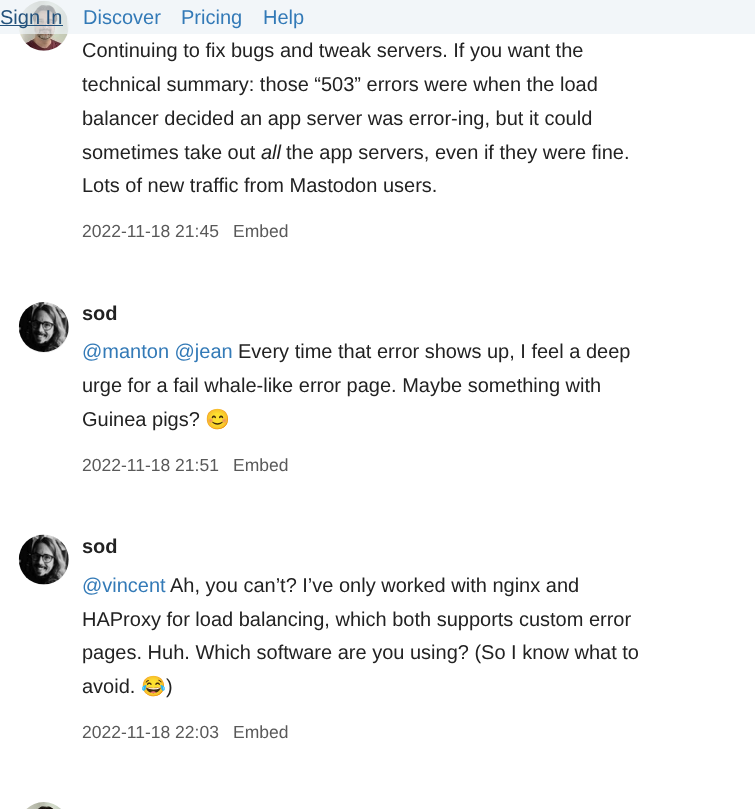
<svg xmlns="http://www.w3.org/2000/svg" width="755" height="809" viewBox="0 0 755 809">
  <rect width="100%" height="100%" fill="#ffffff"/>
  <circle cx="44" cy="26" r="25" fill="#efefef"/>
  <image x="19" y="0" width="50" height="51" href="img1.png"/>
  <rect x="0" y="0" width="755" height="34" fill="#edf2f7" fill-opacity="0.7"/>
  <rect x="0" y="25" width="63" height="1" fill="#23527c"/>
  <text x="0" y="24" font-family="Liberation Sans" font-size="20" fill="#23527c">Sign In</text>
  <text x="83" y="24" font-family="Liberation Sans" font-size="20" fill="#337ab7">Discover</text>
  <text x="181" y="24" font-family="Liberation Sans" font-size="20" fill="#337ab7">Pricing</text>
  <text x="263" y="24" font-family="Liberation Sans" font-size="20" fill="#337ab7">Help</text>
  <text x="82" y="57" font-family="Liberation Sans" font-size="20" fill="#222222">Continuing to fix bugs and tweak servers. If you want the</text>
  <text x="82" y="91" font-family="Liberation Sans" font-size="20" fill="#222222">technical summary: those “503” errors were when the load</text>
  <text x="82" y="125" font-family="Liberation Sans" font-size="20" fill="#222222">balancer decided an app server was error-ing, but it could</text>
  <text x="82" y="159" font-family="Liberation Sans" font-size="20" fill="#222222">sometimes take out</text>
  <text x="261" y="159" font-family="Liberation Sans" font-size="20" font-style="italic" fill="#222222">all</text>
  <text x="286" y="159" font-family="Liberation Sans" font-size="20" fill="#222222">the app servers, even if they were fine.</text>
  <text x="82" y="192" font-family="Liberation Sans" font-size="20" fill="#222222">Lots of new traffic from Mastodon users.</text>
  <text x="82" y="237" font-family="Liberation Sans" font-size="17.5" fill="#595959">2022-11-18 21:45</text>
  <text x="233" y="237" font-family="Liberation Sans" font-size="17.5" fill="#595959">Embed</text>
  <circle cx="44" cy="328" r="25" fill="#efefef"/>
  <image x="18" y="302" width="51" height="50" href="img2.png"/>
  <text x="82" y="320" font-family="Liberation Sans" font-size="20" font-weight="bold" fill="#222222">sod</text>
  <text x="82" y="358" font-family="Liberation Sans" font-size="20" fill="#337ab7">@manton @jean</text>
  <text x="238" y="358" font-family="Liberation Sans" font-size="20" fill="#222222">Every time that error shows up, I feel a deep</text>
  <text x="82" y="392" font-family="Liberation Sans" font-size="20" fill="#222222">urge for a fail whale-like error page. Maybe something with</text>
  <text x="82" y="426" font-family="Liberation Sans" font-size="20" fill="#222222">Guinea pigs?</text>
  <text x="205" y="426" font-family="Noto Color Emoji" font-size="20" fill="#222222">😊</text>
  <text x="82" y="471" font-family="Liberation Sans" font-size="17.5" fill="#595959">2022-11-18 21:51</text>
  <text x="233" y="471" font-family="Liberation Sans" font-size="17.5" fill="#595959">Embed</text>
  <circle cx="44" cy="560" r="25" fill="#efefef"/>
  <image x="18" y="534" width="51" height="51" href="img3.png"/>
  <text x="82" y="553" font-family="Liberation Sans" font-size="20" font-weight="bold" fill="#222222">sod</text>
  <text x="82" y="592" font-family="Liberation Sans" font-size="20" fill="#337ab7">@vincent</text>
  <text x="170" y="592" font-family="Liberation Sans" font-size="20" fill="#222222">Ah, you can’t? I’ve only worked with nginx and</text>
  <text x="82" y="626" font-family="Liberation Sans" font-size="20" fill="#222222">HAProxy for load balancing, which both supports custom error</text>
  <text x="82" y="659" font-family="Liberation Sans" font-size="20" fill="#222222">pages. Huh. Which software are you using? (So I know what to</text>
  <text x="82" y="693" font-family="Liberation Sans" font-size="20" fill="#222222">avoid.</text>
  <text x="141" y="693" font-family="Noto Color Emoji" font-size="20" fill="#222222">😂</text>
  <text x="166" y="693" font-family="Liberation Sans" font-size="20" fill="#222222">)</text>
  <text x="82" y="738" font-family="Liberation Sans" font-size="17.5" fill="#595959">2022-11-18 22:03</text>
  <text x="233" y="738" font-family="Liberation Sans" font-size="17.5" fill="#595959">Embed</text>
  <image x="26" y="802" width="35" height="7" href="img4.png"/>
</svg>
